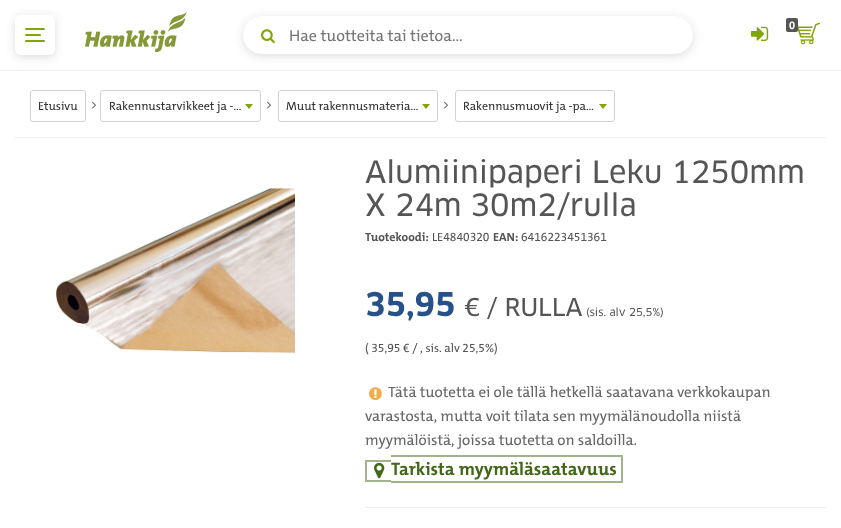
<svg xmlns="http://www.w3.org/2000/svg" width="841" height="528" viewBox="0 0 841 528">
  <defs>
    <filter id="blur1" x="-50%" y="-200%" width="200%" height="500%"><feGaussianBlur stdDeviation="4"/></filter>
  </defs>
  <rect width="100%" height="100%" fill="#ffffff"/>
  <rect x="0" y="70" width="841" height="1" fill="#eeeeee"/>
  <rect x="15" y="17" width="40" height="40" rx="6" fill="#505050" fill-opacity="0.2" filter="url(#blur1)"/>
  <rect x="15" y="15" width="40" height="40" rx="6" fill="#ffffff"/>
  <rect x="25" y="28" width="20" height="2" rx="1" fill="#82a705"/>
  <rect x="25" y="34" width="16" height="2" rx="1" fill="#82a705"/>
  <rect x="25" y="40" width="20" height="2" rx="1" fill="#82a705"/>
  <image x="85" y="12" width="102" height="40" href="img1.png"/>
  <image x="751" y="26" width="18" height="15" href="img2.png"/>
  <image x="797" y="22" width="23" height="23" href="img3.png"/>
  <rect x="786" y="18" width="12" height="14" rx="2" fill="#555555"/>
  <text x="789" y="29" font-family="'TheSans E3'" font-size="11" font-weight="bold" fill="#ffffff">0</text>
  <rect x="243" y="18" width="450" height="38" rx="19" fill="#505050" fill-opacity="0.2" filter="url(#blur1)"/>
  <rect x="243" y="16" width="450" height="38" rx="19" fill="#ffffff"/>
  <image x="261" y="29" width="14" height="15" href="img4.png"/>
  <text x="289" y="41" font-family="'TheSans E3'" font-size="16" fill="#757575">Hae tuotteita tai tietoa...</text>
  <rect x="15" y="137" width="811" height="1" fill="#eeeeee"/>
  <rect x="30.5" y="90.5" width="55" height="31" rx="2.5" fill="none" stroke="#d2d2d2"/>
  <text x="38" y="110" font-family="'TheSans E3'" font-size="12" fill="#333333">Etusivu</text>
  <image x="92" y="101" width="4" height="8" href="img5.png"/>
  <rect x="100.5" y="90.5" width="160" height="31" rx="2.5" fill="none" stroke="#d2d2d2"/>
  <text x="109" y="110" font-family="'TheSans E3'" font-size="12" fill="#333333">Rakennustarvikkeet ja -…</text>
  <path d="M245 104H253L249 109Z" fill="#82a705"/>
  <image x="267" y="101" width="4" height="8" href="img5.png"/>
  <rect x="278.5" y="90.5" width="159" height="31" rx="2.5" fill="none" stroke="#d2d2d2"/>
  <text x="286" y="110" font-family="'TheSans E3'" font-size="12" fill="#333333">Muut rakennusmateria…</text>
  <path d="M422 104H430L426 109Z" fill="#82a705"/>
  <image x="444" y="101" width="4" height="8" href="img5.png"/>
  <rect x="455.5" y="90.5" width="159" height="31" rx="2.5" fill="none" stroke="#d2d2d2"/>
  <text x="463" y="110" font-family="'TheSans E3'" font-size="12" fill="#333333">Rakennusmuovit ja -pa…</text>
  <path d="M599 104H607L603 109Z" fill="#82a705"/>
  <image x="56" y="188" width="239" height="165" href="img6.png"/>
  <text x="365" y="183" font-family="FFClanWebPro" font-size="30" fill="#555555">Alumiinipaperi Leku 1250mm</text>
  <text x="365" y="216" font-family="FFClanWebPro" font-size="30" fill="#555555">X 24m 30m2/rulla</text>
  <text x="365" y="241" font-family="'TheSans E3'" font-size="12" font-weight="bold" fill="#555555">Tuotekoodi:</text>
  <text x="432" y="241" font-family="'TheSans E3'" font-size="12" fill="#555555">LE4840320</text>
  <text x="493" y="241" font-family="'TheSans E3'" font-size="12" font-weight="bold" fill="#555555">EAN:</text>
  <text x="521" y="241" font-family="'TheSans E3'" font-size="12" fill="#555555">6416223451361</text>
  <text x="365" y="316" font-family="'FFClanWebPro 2'" font-size="32" fill="#265189">35,95</text>
  <text x="464" y="316" font-family="FFClanWebPro" font-size="24" fill="#555555">€ / RULLA</text>
  <text x="586" y="316" font-family="FFClanWebPro" font-size="10.75" fill="#555555">(sis. alv 25,5%)</text>
  <text x="365" y="352" font-family="'TheSans E3'" font-size="12" fill="#555555">( 35,95 € / , sis. alv 25,5%)</text>
  <image x="369" y="387" width="13" height="14" href="img7.png"/>
  <text x="388" y="397" font-family="'TheSans E3'" font-size="15" fill="#666666">Tätä tuotetta ei ole tällä hetkellä saatavana verkkokaupan</text>
  <text x="365" y="421" font-family="'TheSans E3'" font-size="15" fill="#666666">varastosta, mutta voit tilata sen myymälänoudolla niistä</text>
  <text x="365" y="445" font-family="'TheSans E3'" font-size="15" fill="#666666">myymälöistä, joissa tuotetta on saldoilla.</text>
  <path d="M365 460H391V462H367ZM391 482H365L367 480H391Z" fill="#a1b38b"/>
  <path d="M365 482V460L367 462V480Z" fill="#426716" fill-opacity="0.5"/>
  <path d="M391 455H623L621 457H391Z" fill="#a1b38b"/>
  <path d="M623 455V483L621 481V457Z" fill="#426716" fill-opacity="0.5"/>
  <path d="M623 483H391V481H621Z" fill="#426716" fill-opacity="0.5"/>
  <image x="374" y="462" width="11" height="17" href="img8.png"/>
  <text x="391" y="475" font-family="'TheSans E3'" font-size="18" font-weight="bold" fill="#426716">Tarkista myymäläsaatavuus</text>
  <rect x="365" y="507" width="461" height="1" fill="#eeeeee"/>
</svg>
